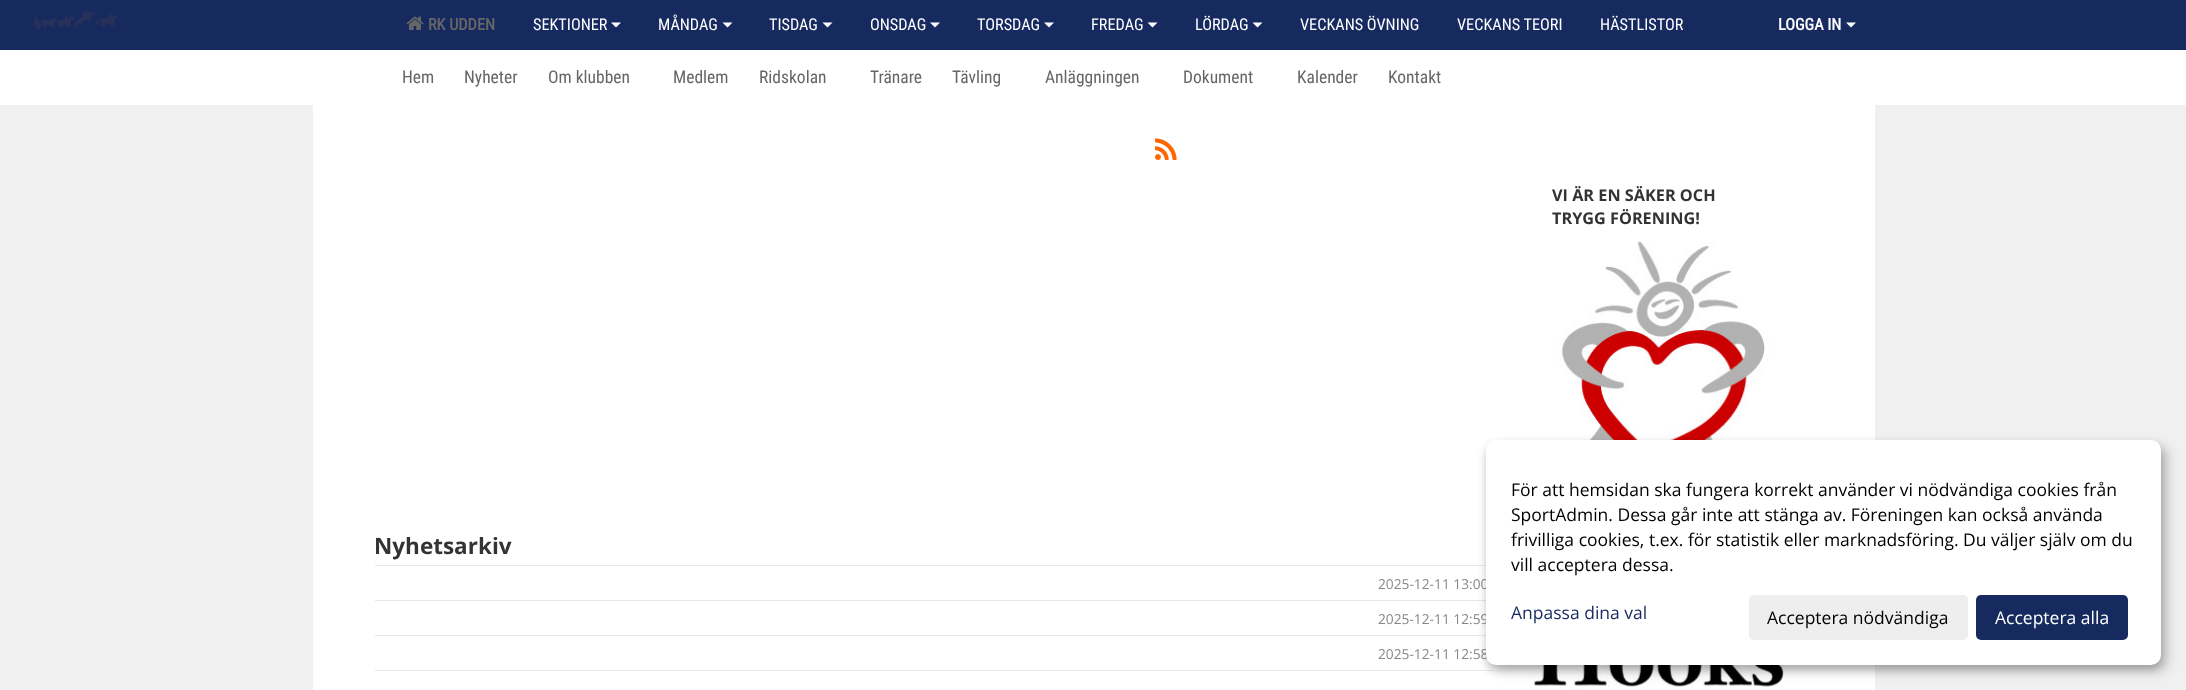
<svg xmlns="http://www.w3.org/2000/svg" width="2186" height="690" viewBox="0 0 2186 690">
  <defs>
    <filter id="blur1" x="-50%" y="-200%" width="200%" height="500%"><feGaussianBlur stdDeviation="6"/></filter>
    <filter id="blur2" x="-50%" y="-200%" width="200%" height="500%"><feGaussianBlur stdDeviation="4"/></filter>
  </defs>
  <rect width="100%" height="100%" fill="#f0f0f0"/>
  <rect x="0" y="0" width="2186" height="50" fill="#162a5f"/>
  <image x="33" y="10" width="86" height="20" href="img1.png"/>
  <image x="406" y="16" width="18" height="14" href="img2.png"/>
  <text x="428" y="30" font-family="Roboto Condensed" font-size="16.25" font-weight="bold" fill="#666666">RK UDDEN</text>
  <text x="533" y="30" font-family="Roboto Condensed" font-size="16.25" fill="#ffffff">SEKTIONER</text>
  <path d="M611 22.5H621L616 27.5Z" fill="#ffffff"/>
  <text x="658" y="30" font-family="Roboto Condensed" font-size="16.25" fill="#ffffff">MÅNDAG</text>
  <path d="M722.5 22.5H732.5L727.5 27.5Z" fill="#ffffff"/>
  <text x="769" y="30" font-family="Roboto Condensed" font-size="16.25" fill="#ffffff">TISDAG</text>
  <path d="M822.5 22.5H832.5L827.5 27.5Z" fill="#ffffff"/>
  <text x="870" y="30" font-family="Roboto Condensed" font-size="16.25" fill="#ffffff">ONSDAG</text>
  <path d="M930 22.5H940L935 27.5Z" fill="#ffffff"/>
  <text x="977" y="30" font-family="Roboto Condensed" font-size="16.25" fill="#ffffff">TORSDAG</text>
  <path d="M1044 22.5H1054L1049 27.5Z" fill="#ffffff"/>
  <text x="1091" y="30" font-family="Roboto Condensed" font-size="16.25" fill="#ffffff">FREDAG</text>
  <path d="M1147.5 22.5H1157.5L1152.5 27.5Z" fill="#ffffff"/>
  <text x="1195" y="30" font-family="Roboto Condensed" font-size="16.25" fill="#ffffff">LÖRDAG</text>
  <path d="M1252.5 22.5H1262.5L1257.5 27.5Z" fill="#ffffff"/>
  <text x="1300" y="30" font-family="Roboto Condensed" font-size="16.25" fill="#ffffff">VECKANS ÖVNING</text>
  <text x="1457" y="30" font-family="Roboto Condensed" font-size="16.25" fill="#ffffff">VECKANS TEORI</text>
  <text x="1600" y="30" font-family="Roboto Condensed" font-size="16.25" fill="#ffffff">HÄSTLISTOR</text>
  <text x="1778" y="30" font-family="Roboto Condensed" font-size="16.25" font-weight="bold" fill="#ffffff">LOGGA IN</text>
  <path d="M1846 22.5H1856L1851 27.5Z" fill="#ffffff"/>
  <rect x="313" y="105" width="1562" height="585" fill="#ffffff"/>
  <rect x="0" y="50" width="2186" height="55" fill="#ffffff"/>
  <text x="402" y="83" font-family="Roboto Condensed" font-size="17.5" fill="#666666">Hem</text>
  <text x="464" y="83" font-family="Roboto Condensed" font-size="17.5" fill="#666666">Nyheter</text>
  <text x="548" y="83" font-family="Roboto Condensed" font-size="17.5" fill="#666666">Om klubben</text>
  <text x="673" y="83" font-family="Roboto Condensed" font-size="17.5" fill="#666666">Medlem</text>
  <text x="759" y="83" font-family="Roboto Condensed" font-size="17.5" fill="#666666">Ridskolan</text>
  <text x="870" y="83" font-family="Roboto Condensed" font-size="17.5" fill="#666666">Tränare</text>
  <text x="952" y="83" font-family="Roboto Condensed" font-size="17.5" fill="#666666">Tävling</text>
  <text x="1045" y="83" font-family="Roboto Condensed" font-size="17.5" fill="#666666">Anläggningen</text>
  <text x="1183" y="83" font-family="Roboto Condensed" font-size="17.5" fill="#666666">Dokument</text>
  <text x="1297" y="83" font-family="Roboto Condensed" font-size="17.5" fill="#666666">Kalender</text>
  <text x="1388" y="83" font-family="Roboto Condensed" font-size="17.5" fill="#666666">Kontakt</text>
  <text x="1552" y="201" font-family="Open Sans" font-size="16.25" font-weight="bold" fill="#333333">VI ÄR EN SÄKER OCH</text>
  <text x="1552" y="224" font-family="Open Sans" font-size="16.25" font-weight="bold" fill="#333333">TRYGG FÖRENING!</text>
  <image x="1534" y="241" width="250" height="199" href="img3.png"/>
  <image x="1534" y="665" width="250" height="25" href="img4.png"/>
  <image x="1155" y="138" width="22" height="22" href="img5.png"/>
  <text x="374" y="554" font-family="Open Sans" font-size="22.5" font-weight="bold" fill="#333333">Nyhetsarkiv</text>
  <rect x="375" y="565" width="1119" height="1" fill="#e8e8e8"/>
  <text x="1378" y="589" font-family="Open Sans" font-size="13.75" fill="#888888">2025-12-11 13:00</text>
  <rect x="375" y="600" width="1119" height="1" fill="#e8e8e8"/>
  <text x="1378" y="624" font-family="Open Sans" font-size="13.75" fill="#888888">2025-12-11 12:59</text>
  <rect x="375" y="635" width="1119" height="1" fill="#e8e8e8"/>
  <text x="1378" y="659" font-family="Open Sans" font-size="13.75" fill="#888888">2025-12-11 12:58</text>
  <rect x="375" y="670" width="1119" height="1" fill="#e8e8e8"/>
  <rect x="1493" y="446" width="675" height="225" rx="10" fill="#000000" fill-opacity="0.19" filter="url(#blur1)"/>
  <rect x="1486" y="445" width="675" height="225" rx="10" fill="#000000" fill-opacity="0.2" filter="url(#blur2)"/>
  <rect x="1486" y="440" width="675" height="225" rx="10" fill="#ffffff"/>
  <text x="1511" y="496" font-family="Open Sans" font-size="17.5" fill="#000000">För att hemsidan ska fungera korrekt använder vi nödvändiga cookies från</text>
  <text x="1511" y="521" font-family="Open Sans" font-size="17.5" fill="#000000">SportAdmin. Dessa går inte att stänga av. Föreningen kan också använda</text>
  <text x="1511" y="546" font-family="Open Sans" font-size="17.5" fill="#000000">frivilliga cookies, t.ex. för statistik eller marknadsföring. Du väljer själv om du</text>
  <text x="1511" y="571" font-family="Open Sans" font-size="17.5" fill="#000000">vill acceptera dessa.</text>
  <text x="1511" y="619" font-family="Open Sans" font-size="17.5" fill="#162a5f">Anpassa dina val</text>
  <rect x="1749" y="595" width="219" height="45" rx="5" fill="#eeeeee"/>
  <text x="1767" y="624" font-family="Open Sans" font-size="17.5" fill="#000000">Acceptera nödvändiga</text>
  <rect x="1976" y="595" width="152" height="45" rx="5" fill="#162a5f"/>
  <text x="1995" y="624" font-family="Open Sans" font-size="17.5" fill="#ffffff">Acceptera alla</text>
</svg>
